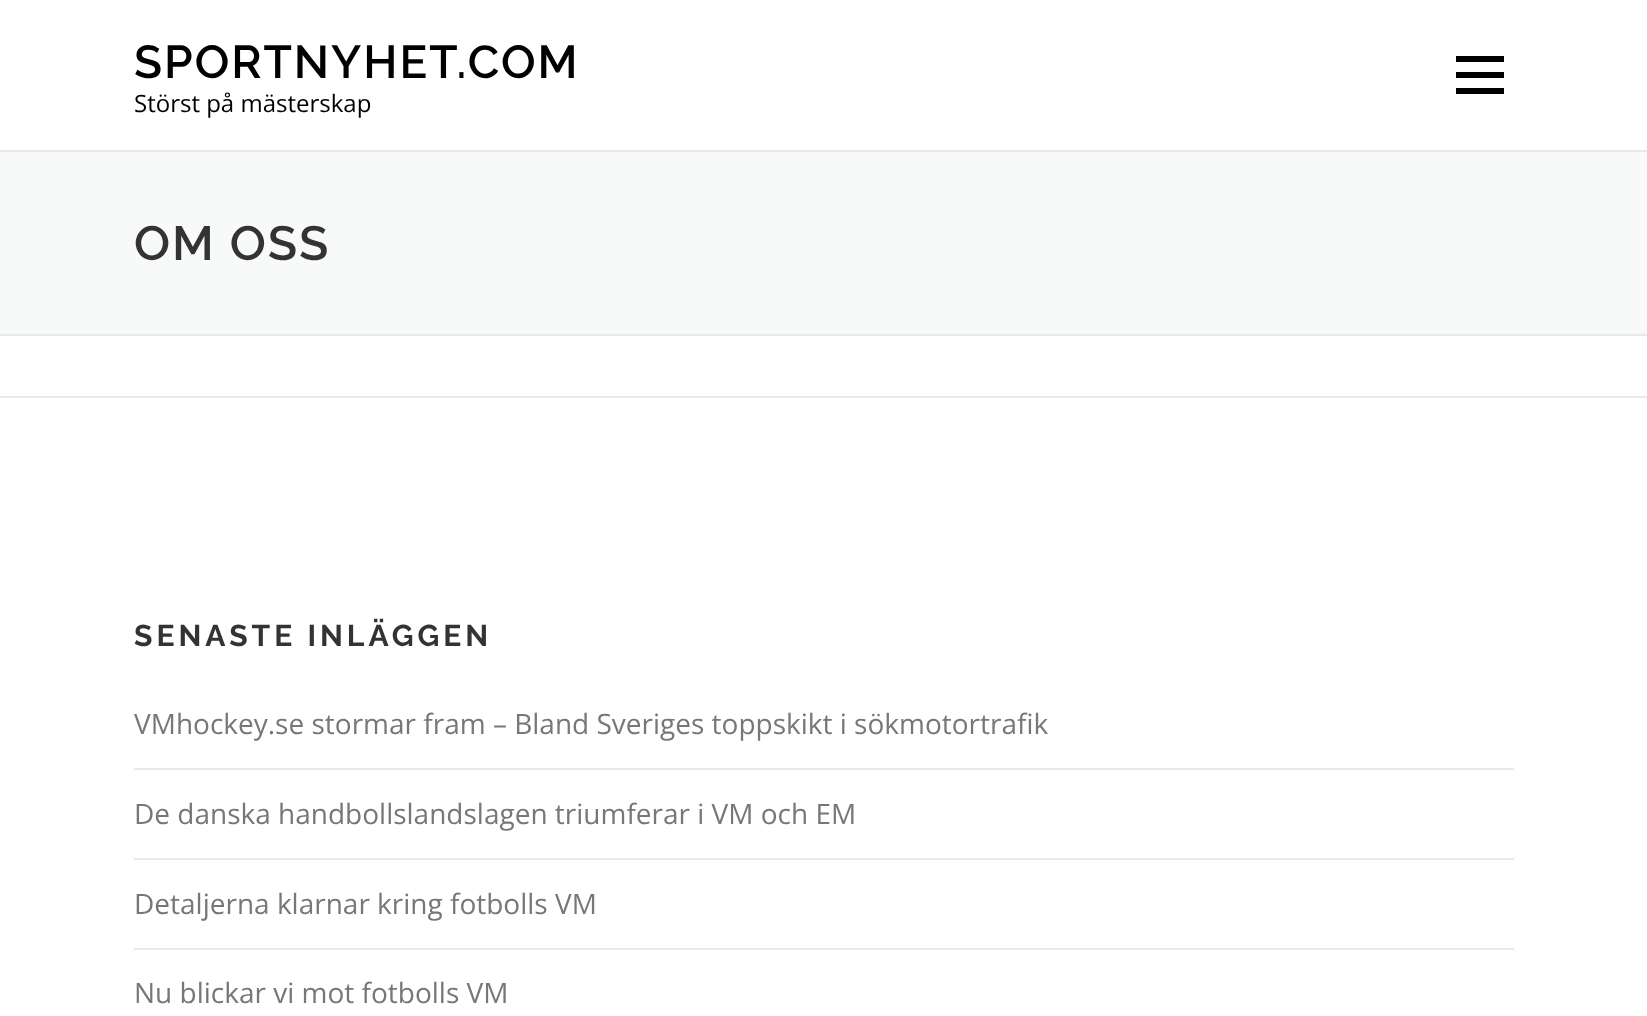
<svg xmlns="http://www.w3.org/2000/svg" width="1647" height="1016" viewBox="0 0 1647 1016">
  <rect width="100%" height="100%" fill="#ffffff"/>
  <text x="134" y="78" font-family="Raleway" font-size="46" font-weight="600" letter-spacing="2" fill="#000000">SPORTNYHET.COM</text>
  <text x="134" y="112" font-family="Open Sans" font-size="24" fill="#000000">Störst på mästerskap</text>
  <rect x="1456" y="72" width="48" height="6" fill="#000000"/>
  <rect x="1456" y="56" width="48" height="6" fill="#000000"/>
  <rect x="1456" y="88" width="48" height="6" fill="#000000"/>
  <rect x="0" y="152" width="1647" height="182" fill="#f8f9f9"/>
  <rect x="0" y="150" width="1647" height="2" fill="#e9e9e9"/>
  <rect x="0" y="334" width="1647" height="2" fill="#e9e9e9"/>
  <text x="134" y="260" font-family="Raleway" font-size="48" font-weight="600" letter-spacing="2" fill="#333333">OM OSS</text>
  <rect x="0" y="396" width="1647" height="2" fill="#e9e9e9"/>
  <text x="134" y="646" font-family="Raleway" font-size="30" font-weight="bold" letter-spacing="4" fill="#333333">SENASTE INLÄGGEN</text>
  <rect x="134" y="768" width="1380" height="2" fill="#e9e9e9"/>
  <text x="134" y="734" font-family="Open Sans" font-size="28" fill="#777777">VMhockey.se stormar fram – Bland Sveriges toppskikt i sökmotortrafik</text>
  <rect x="134" y="858" width="1380" height="2" fill="#e9e9e9"/>
  <text x="134" y="824" font-family="Open Sans" font-size="28" fill="#777777">De danska handbollslandslagen triumferar i VM och EM</text>
  <rect x="134" y="948" width="1380" height="2" fill="#e9e9e9"/>
  <text x="134" y="914" font-family="Open Sans" font-size="28" fill="#777777">Detaljerna klarnar kring fotbolls VM</text>
  <text x="134" y="1003" font-family="Open Sans" font-size="28" fill="#777777">Nu blickar vi mot fotbolls VM</text>
</svg>
